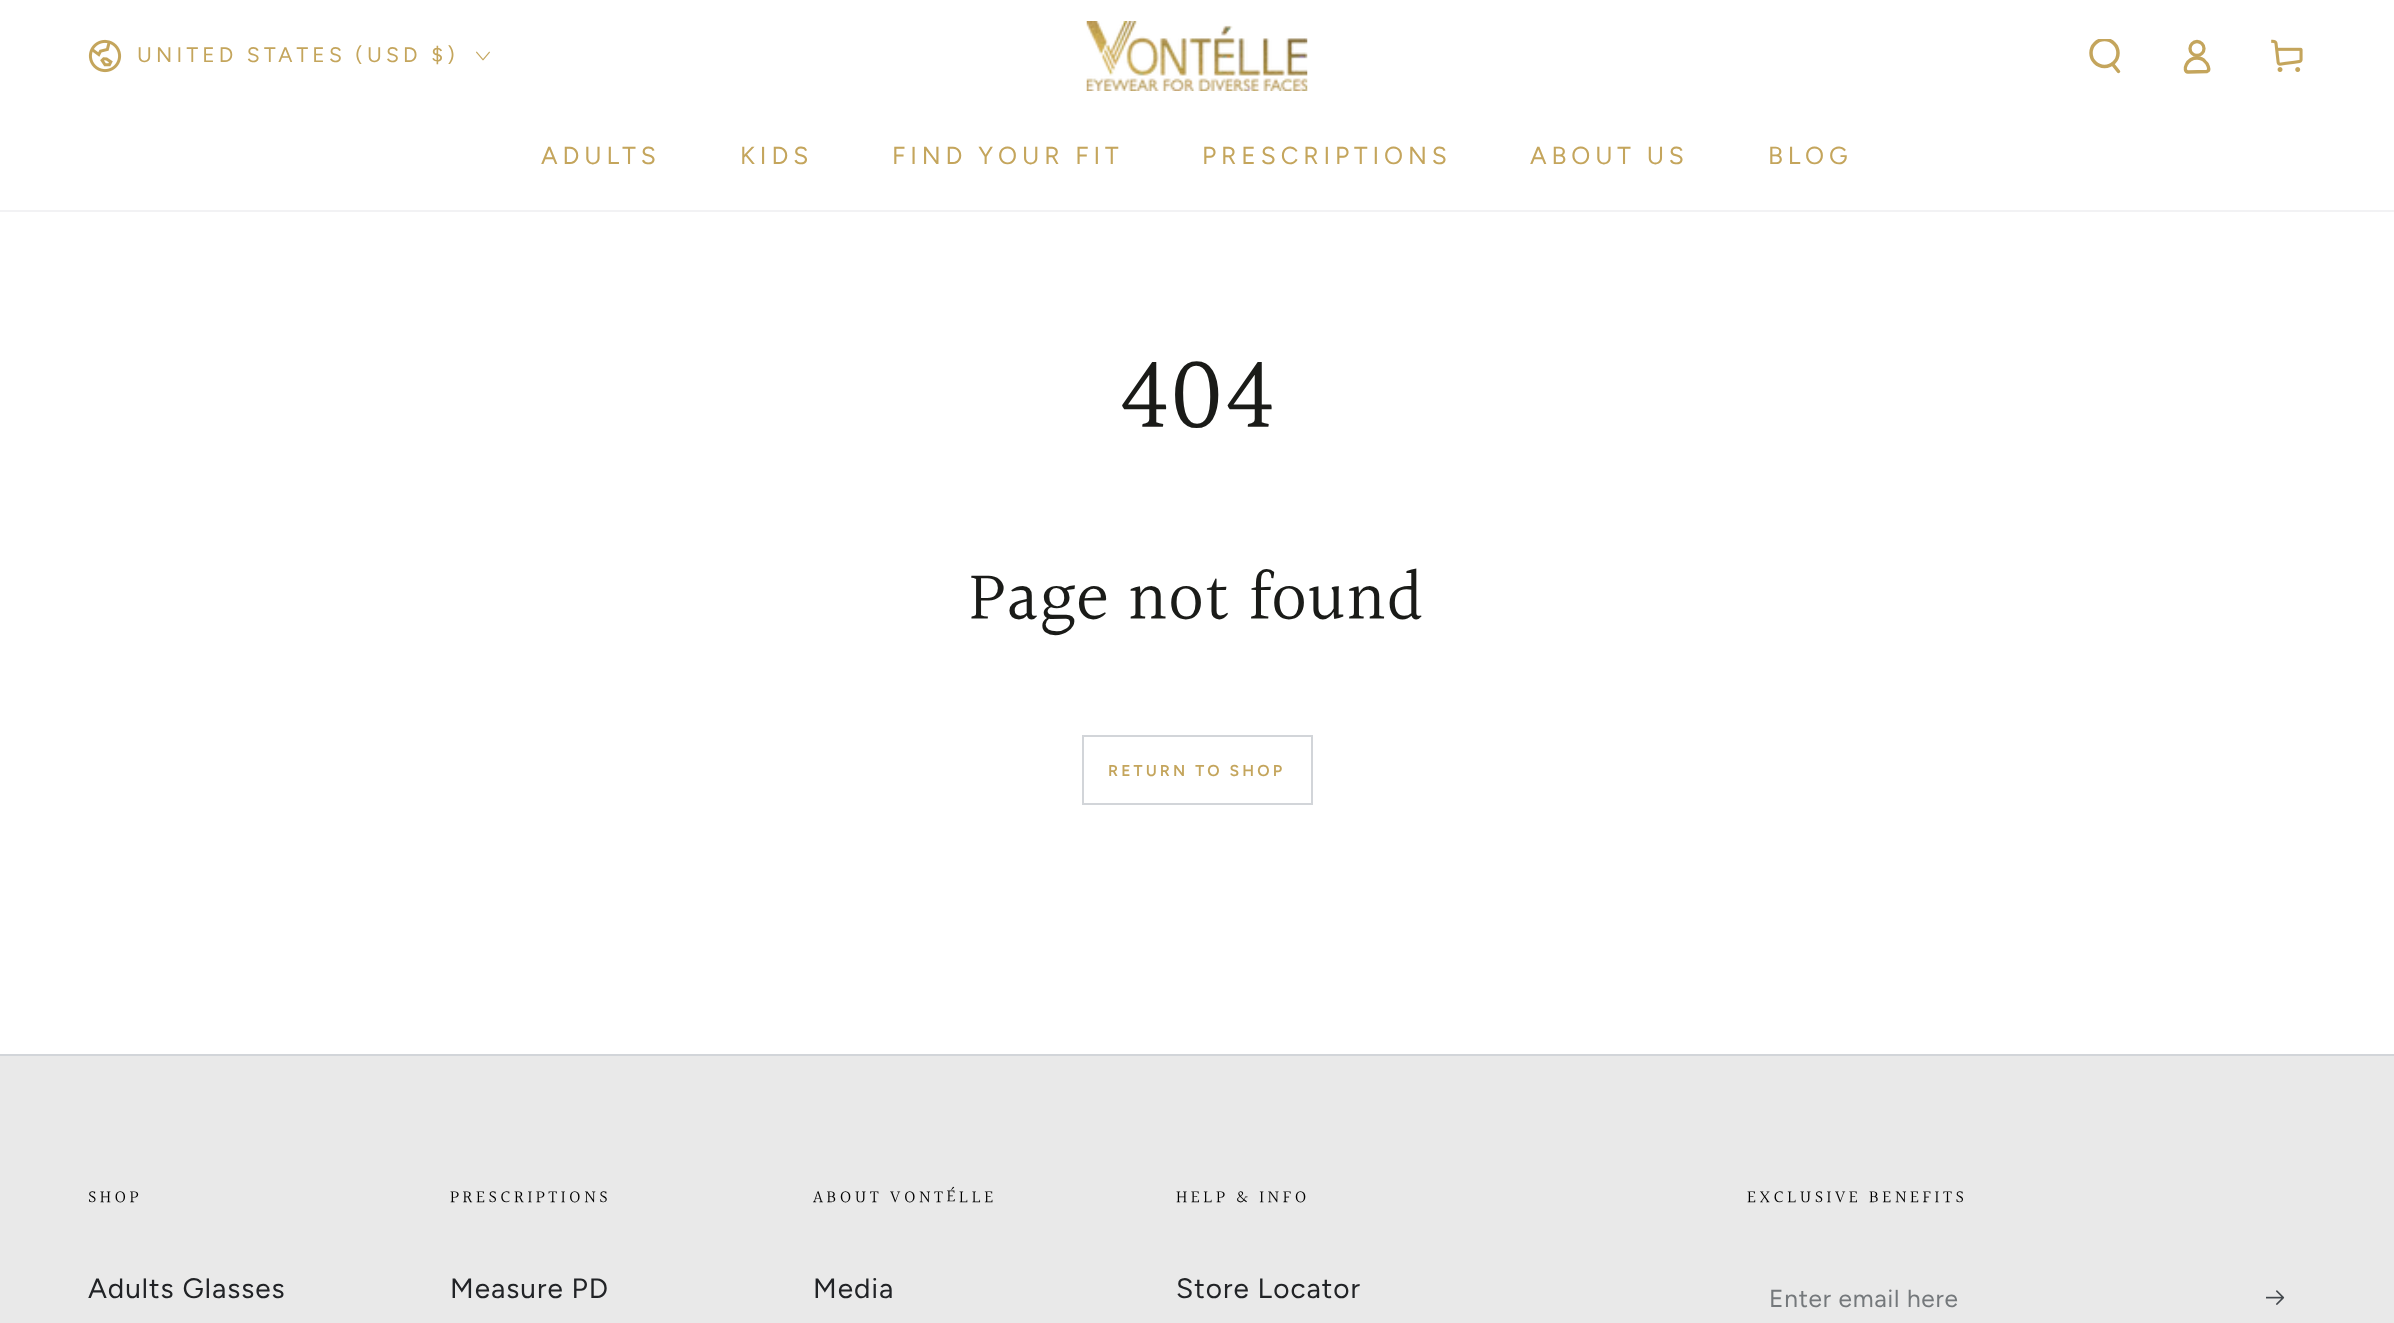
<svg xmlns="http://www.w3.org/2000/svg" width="2394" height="1323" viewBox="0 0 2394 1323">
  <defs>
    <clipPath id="clip1"><rect x="2088" y="39" width="35" height="35"/></clipPath>
  </defs>
  <rect width="100%" height="100%" fill="#ffffff"/>
  <rect x="0" y="210" width="2394" height="2" fill="#f2f2f4"/>
  <image x="88" y="39" width="34" height="34" href="img1.png"/>
  <text x="137" y="62" font-family="Figtree" font-size="21" letter-spacing="4.2" fill="#c4a55c">UNITED STATES (USD $)</text>
  <image x="476" y="51" width="14" height="10" href="img2.png"/>
  <image x="1086" y="21" width="222" height="70" href="img3.png"/>
  <g clip-path="url(#clip1)">
    <circle cx="2104.5" cy="53" r="13.5" fill="none" stroke="#c4a55c" stroke-width="3.5"/>
  </g>
  <path d="M2112.5 64L2118.5 71.5" fill="none" stroke="#c4a55c" stroke-width="3.5" stroke-linecap="round"/>
  <path d="M2197 58C2186.5 58 2182 71.5 2188 72L2207 71.5C2211 70 2207 63 2205 61.5C2203 59 2200 58 2197 58Z" fill="none" stroke="#c4a55c" stroke-width="3.3"/>
  <circle cx="2197" cy="48.5" r="7" fill="none" stroke="#c4a55c" stroke-width="3.3"/>
  <image x="2271" y="39" width="32" height="33" href="img4.png"/>
  <text x="541" y="164" font-family="Figtree" font-size="24.5" letter-spacing="4.9" fill="#c4a55c">ADULTS</text>
  <text x="740" y="164" font-family="Figtree" font-size="24.5" letter-spacing="4.9" fill="#c4a55c">KIDS</text>
  <text x="892" y="164" font-family="Figtree" font-size="24.5" letter-spacing="4.9" fill="#c4a55c">FIND YOUR FIT</text>
  <text x="1202" y="164" font-family="Figtree" font-size="24.5" letter-spacing="4.9" fill="#c4a55c">PRESCRIPTIONS</text>
  <text x="1530" y="164" font-family="Figtree" font-size="24.5" letter-spacing="4.9" fill="#c4a55c">ABOUT US</text>
  <text x="1768" y="164" font-family="Figtree" font-size="24.5" letter-spacing="4.9" fill="#c4a55c">BLOG</text>
  <text x="1119" y="432" font-family="Halant" font-size="105" letter-spacing="1" fill="#1a1b18">404</text>
  <text x="969" y="622" font-family="Halant" font-size="70" letter-spacing="1" fill="#1a1b18">Page not found</text>
  <rect x="1083" y="736" width="229" height="68" fill="none" stroke="#d2d5d9" stroke-width="2"/>
  <text x="1108" y="776" font-family="Figtree" font-size="15.75" font-weight="600" letter-spacing="3.1" fill="#c4a55c">RETURN TO SHOP</text>
  <rect x="0" y="1056" width="2394" height="267" fill="#e9e9e9"/>
  <rect x="0" y="1054" width="2394" height="2" fill="#d2d5d9"/>
  <text x="88" y="1203" font-family="Halant" font-size="17.5" letter-spacing="3.5" fill="#000000">SHOP</text>
  <text x="88" y="1298" font-family="Figtree" font-size="28" letter-spacing="1" fill="#212326">Adults Glasses</text>
  <text x="450" y="1203" font-family="Halant" font-size="17.5" letter-spacing="3.5" fill="#000000">PRESCRIPTIONS</text>
  <text x="450" y="1298" font-family="Figtree" font-size="28" letter-spacing="1" fill="#212326">Measure PD</text>
  <text x="813" y="1203" font-family="Halant" font-size="17.5" letter-spacing="3.5" fill="#000000">ABOUT VONTÉLLE</text>
  <text x="813" y="1298" font-family="Figtree" font-size="28" letter-spacing="1" fill="#212326">Media</text>
  <text x="1176" y="1203" font-family="Halant" font-size="17.5" letter-spacing="3.5" fill="#000000">HELP &amp; INFO</text>
  <text x="1176" y="1298" font-family="Figtree" font-size="28" letter-spacing="1" fill="#212326">Store Locator</text>
  <text x="1747" y="1203" font-family="Halant" font-size="17.5" letter-spacing="3.5" fill="#000000">EXCLUSIVE BENEFITS</text>
  <text x="1769" y="1307" font-family="Figtree" font-size="24.5" letter-spacing="0.75" fill="#74787b">Enter email here</text>
  <image x="2266" y="1290" width="19" height="15" href="img5.png"/>
</svg>
